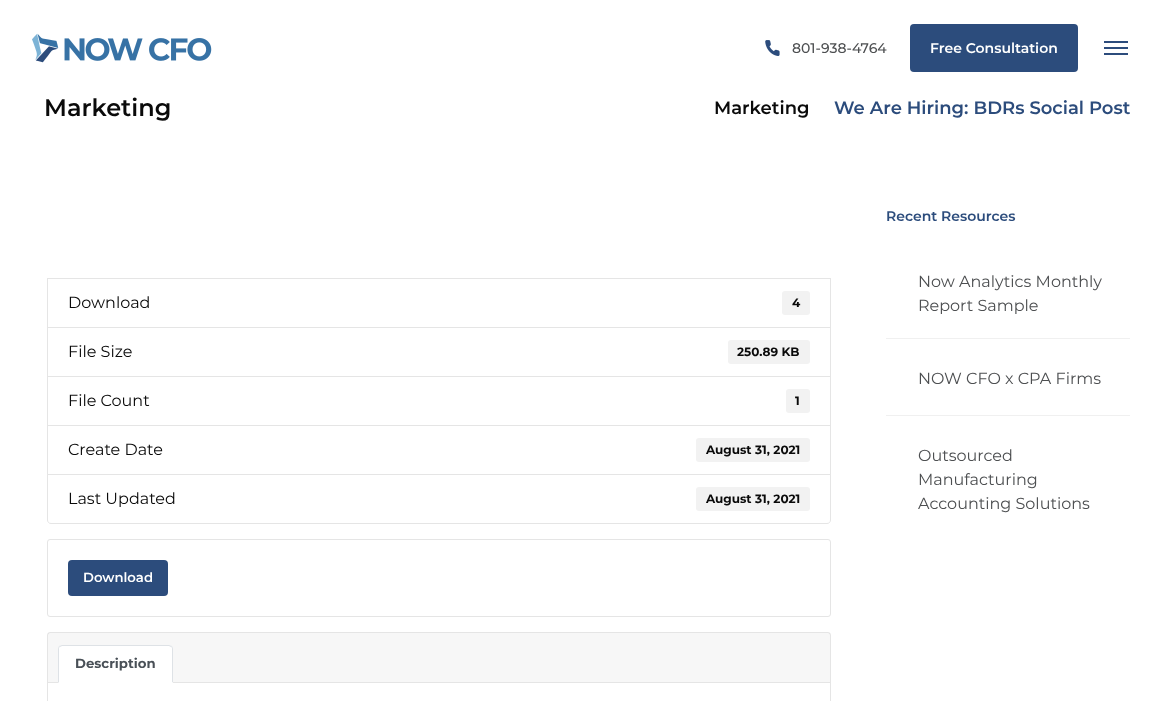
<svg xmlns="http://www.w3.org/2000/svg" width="1162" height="701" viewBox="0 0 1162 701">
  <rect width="100%" height="100%" fill="#ffffff"/>
  <image x="32" y="33" width="180" height="30" href="img1.png"/>
  <image x="765" y="40" width="15" height="16" href="img2.png"/>
  <text x="792" y="53" font-family="Montserrat" font-size="14" font-weight="500" fill="#4d4f51">801-938-4764</text>
  <rect x="910" y="24" width="168" height="48" rx="4" fill="#2c4c7c"/>
  <text x="930" y="53" font-family="Montserrat" font-size="14" font-weight="600" fill="#ffffff">Free Consultation</text>
  <rect x="1104" y="41" width="24" height="2" fill="#2c4c7c"/>
  <rect x="1104" y="47" width="24" height="2" fill="#2c4c7c"/>
  <rect x="1104" y="53" width="24" height="2" fill="#2c4c7c"/>
  <text x="44" y="116" font-family="Montserrat" font-size="24" font-weight="600" fill="#0a0a0a">Marketing</text>
  <text x="714" y="114" font-family="Montserrat" font-size="18" font-weight="600" fill="#0a0a0a">Marketing</text>
  <text x="834" y="114" font-family="Montserrat" font-size="18" font-weight="600" fill="#2c4c7c">We Are Hiring: BDRs Social Post</text>
  <rect x="47.5" y="278.5" width="783" height="49" fill="none" stroke="#e5e5e5"/>
  <text x="68" y="308" font-family="Montserrat" font-size="16" fill="#0a0a0a">Download</text>
  <rect x="782" y="291" width="28" height="24" rx="3" fill="#f2f2f2"/>
  <text x="792" y="307" font-family="Montserrat" font-size="12" font-weight="bold" fill="#0a0a0a">4</text>
  <rect x="47.5" y="327.5" width="783" height="49" fill="none" stroke="#e5e5e5"/>
  <text x="68" y="357" font-family="Montserrat" font-size="16" fill="#0a0a0a">File Size</text>
  <rect x="728" y="340" width="82" height="24" rx="3" fill="#f2f2f2"/>
  <text x="737" y="356" font-family="Montserrat" font-size="12" font-weight="bold" fill="#0a0a0a">250.89 KB</text>
  <rect x="47.5" y="376.5" width="783" height="49" fill="none" stroke="#e5e5e5"/>
  <text x="68" y="406" font-family="Montserrat" font-size="16" fill="#0a0a0a">File Count</text>
  <rect x="786" y="389" width="24" height="24" rx="3" fill="#f2f2f2"/>
  <text x="795" y="405" font-family="Montserrat" font-size="12" font-weight="bold" fill="#0a0a0a">1</text>
  <rect x="47.5" y="425.5" width="783" height="49" fill="none" stroke="#e5e5e5"/>
  <text x="68" y="455" font-family="Montserrat" font-size="16" fill="#0a0a0a">Create Date</text>
  <rect x="696" y="438" width="114" height="24" rx="3" fill="#f2f2f2"/>
  <text x="706" y="454" font-family="Montserrat" font-size="12" font-weight="bold" fill="#0a0a0a">August 31, 2021</text>
  <path d="M47.5 474.5H830.5V520C830.5 522 829 523.5 827 523.5H51C49 523.5 47.5 522 47.5 520Z" fill="#ffffff" stroke="#e5e5e5"/>
  <text x="68" y="504" font-family="Montserrat" font-size="16" fill="#0a0a0a">Last Updated</text>
  <rect x="696" y="487" width="114" height="24" rx="3" fill="#f2f2f2"/>
  <text x="706" y="503" font-family="Montserrat" font-size="12" font-weight="bold" fill="#0a0a0a">August 31, 2021</text>
  <rect x="47.5" y="539.5" width="783" height="77" rx="2.5" fill="none" stroke="#e5e5e5"/>
  <rect x="68" y="560" width="100" height="36" rx="4" fill="#2c4c7c"/>
  <text x="83" y="582" font-family="Montserrat" font-size="13.25" font-weight="600" fill="#ffffff">Download</text>
  <rect x="47.5" y="632.5" width="783" height="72" rx="2.5" fill="none" stroke="#e5e5e5"/>
  <rect x="48" y="633" width="782" height="49" fill="#000000" fill-opacity="0.03"/>
  <rect x="48" y="682" width="782" height="1" fill="#e5e5e5"/>
  <path d="M62 645H169C171 645 173 647 173 649V683H58V649C58 647 60 645 62 645Z" fill="#ffffff"/>
  <path d="M62 645L59 646L60 647L62 646H169L171 647L172 646L169 645Z" fill="#dee2e6"/>
  <path d="M173 683V649C173 648 172.5 647 172 646L171 647C172 647 172 648 172 649V682Z" fill="#dee2e6"/>
  <path d="M173 683L172 682H59L58 683Z" fill="#ffffff"/>
  <path d="M58 683L59 682V649C59 648 59 647 60 647L59 646C58.5 647 58 648 58 649Z" fill="#dee2e6"/>
  <text x="75" y="668" font-family="Montserrat" font-size="13.25" font-weight="bold" fill="#495057">Description</text>
  <text x="886" y="221" font-family="Montserrat" font-size="14" font-weight="600" fill="#2c4c7c">Recent Resources</text>
  <rect x="886" y="338" width="244" height="1" fill="#f0f0f0"/>
  <text x="918" y="287" font-family="Montserrat" font-size="16" fill="#4d4f51">Now Analytics Monthly</text>
  <text x="918" y="311" font-family="Montserrat" font-size="16" fill="#4d4f51">Report Sample</text>
  <rect x="886" y="415" width="244" height="1" fill="#f0f0f0"/>
  <text x="918" y="384" font-family="Montserrat" font-size="16" fill="#4d4f51">NOW CFO x CPA Firms</text>
  <text x="918" y="461" font-family="Montserrat" font-size="16" fill="#4d4f51">Outsourced</text>
  <text x="918" y="485" font-family="Montserrat" font-size="16" fill="#4d4f51">Manufacturing</text>
  <text x="918" y="509" font-family="Montserrat" font-size="16" fill="#4d4f51">Accounting Solutions</text>
</svg>
